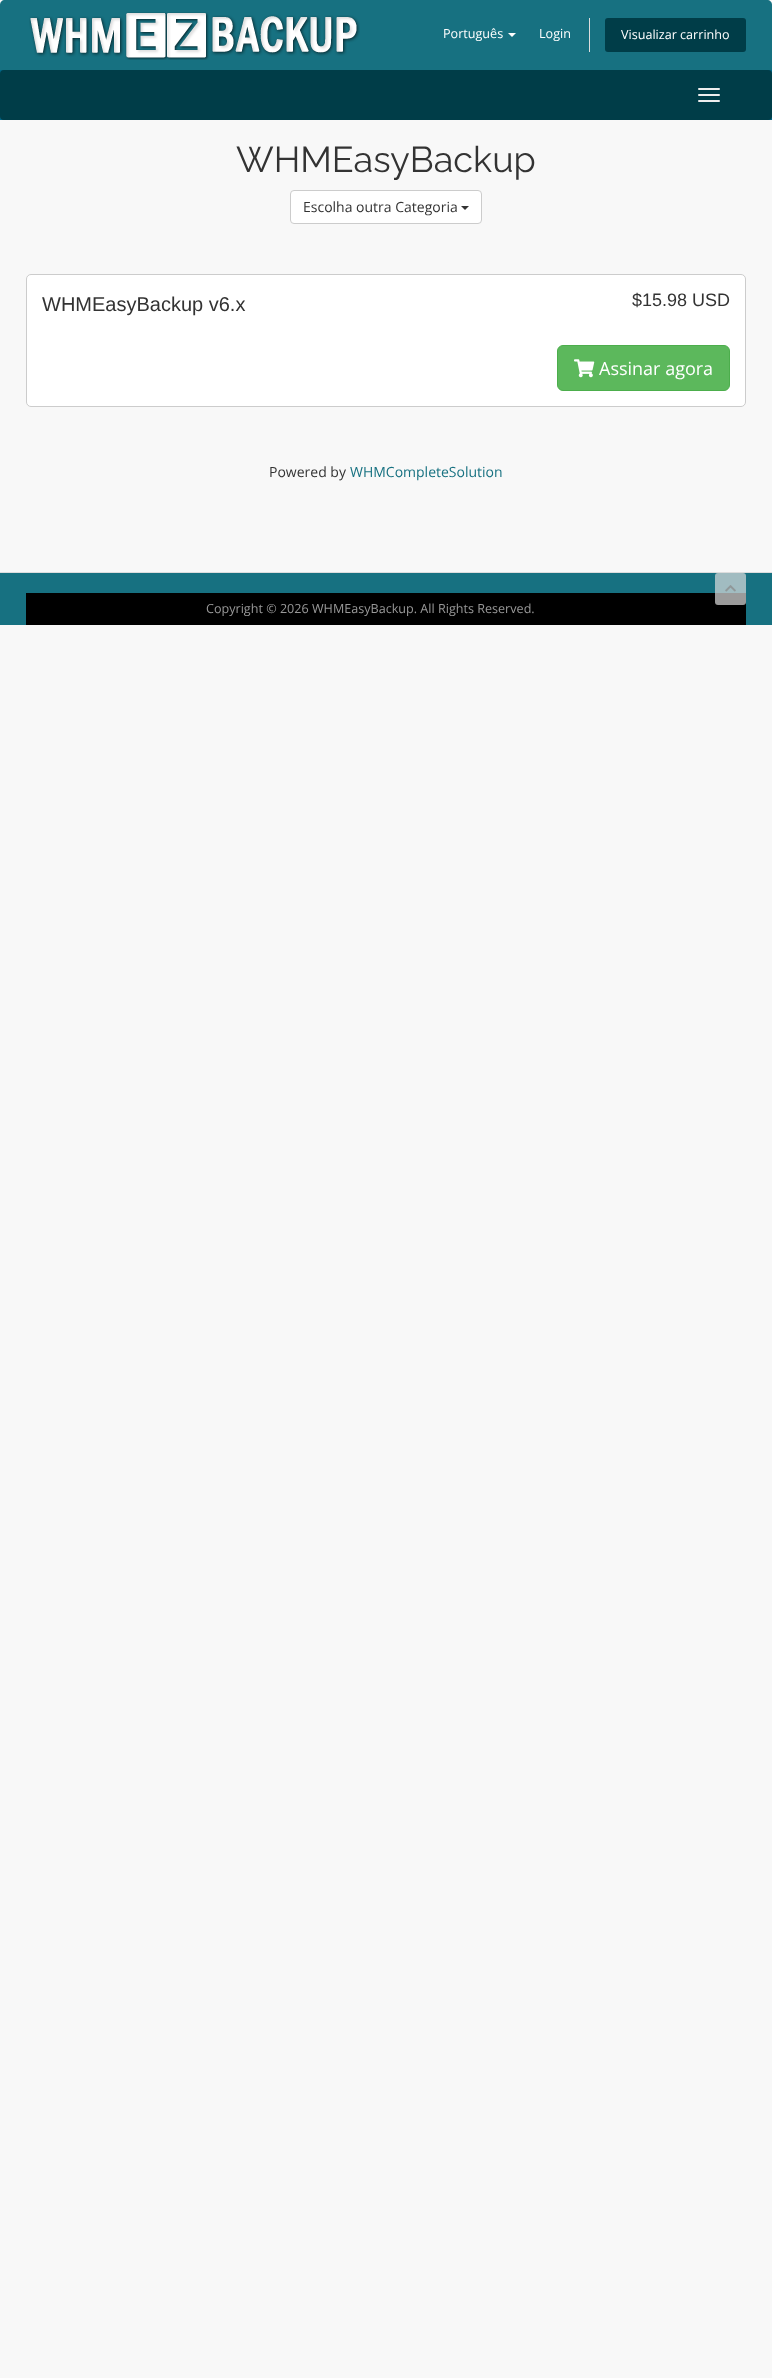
<svg xmlns="http://www.w3.org/2000/svg" width="772" height="2378" viewBox="0 0 772 2378">
  <rect width="100%" height="100%" fill="#f8f8f8"/>
  <path d="M5 0H767C770 0 772 2 772 5V70H0V5C0 2 2 0 5 0Z" fill="#177181"/>
  <image x="29" y="12" width="331" height="48" href="img1.png"/>
  <text x="443" y="38" font-family="Open Sans" font-size="12.6" fill="#ffffff">Português</text>
  <path d="M508 33H516L512 37Z" fill="#ffffff"/>
  <text x="539" y="38" font-family="Open Sans" font-size="12.6" fill="#ffffff">Login</text>
  <rect x="589" y="18" width="1" height="34" fill="#dddddd"/>
  <rect x="605" y="18" width="141" height="34" rx="3" fill="#003d48"/>
  <text x="621" y="39" font-family="Open Sans" font-size="12.6" fill="#ffffff">Visualizar carrinho</text>
  <rect x="0" y="70" width="772" height="50" fill="#006687"/>
  <rect x="0" y="70" width="772" height="50" rx="4" fill="#003d48"/>
  <rect x="698" y="88" width="22" height="2" rx="1" fill="#eeeeee"/>
  <rect x="698" y="94" width="22" height="2" rx="1" fill="#eeeeee"/>
  <rect x="698" y="100" width="22" height="2" rx="1" fill="#eeeeee"/>
  <text x="236" y="172" font-family="Raleway" font-size="36" fill="#333333">WHMEasyBackup</text>
  <rect x="290.5" y="190.5" width="191" height="33" rx="3.5" fill="#ffffff" stroke="#cccccc"/>
  <text x="303" y="212" font-family="Open Sans" font-size="14" fill="#333333">Escolha outra Categoria</text>
  <path d="M461 206H469L465 210Z" fill="#333333"/>
  <rect x="26.5" y="274.5" width="719" height="132" rx="4.5" fill="#ffffff" stroke="#cccccc"/>
  <text x="42" y="311" font-family="Liberation Sans" font-size="20" fill="#333333">WHMEasyBackup v6.x</text>
  <text x="632" y="306" font-family="Liberation Sans" font-size="18" fill="#333333">$15.98 USD</text>
  <rect x="557.5" y="345.5" width="172" height="45" rx="5.5" fill="#5cb85c" stroke="#4cae4c"/>
  <image x="574" y="359" width="21" height="19" href="img2.png"/>
  <text x="599" y="375" font-family="Open Sans" font-size="18" fill="#ffffff">Assinar agora</text>
  <text x="269" y="477" font-family="Open Sans" font-size="14" fill="#333333">Powered by</text>
  <text x="350" y="477" font-family="Open Sans" font-size="14" fill="#177181">WHMCompleteSolution</text>
  <rect x="0" y="573" width="772" height="52" fill="#177181"/>
  <rect x="0" y="572" width="772" height="1" fill="#dddddd"/>
  <rect x="26" y="593" width="720" height="32" fill="#000000"/>
  <rect x="715" y="573" width="31" height="32" rx="3" fill="#dddddd" fill-opacity="0.7"/>
  <image x="725" y="585" width="11" height="7" href="img3.png"/>
  <text x="206" y="613" font-family="Open Sans" font-size="12.6" fill="#999999">Copyright © 2026 WHMEasyBackup. All Rights Reserved.</text>
</svg>
